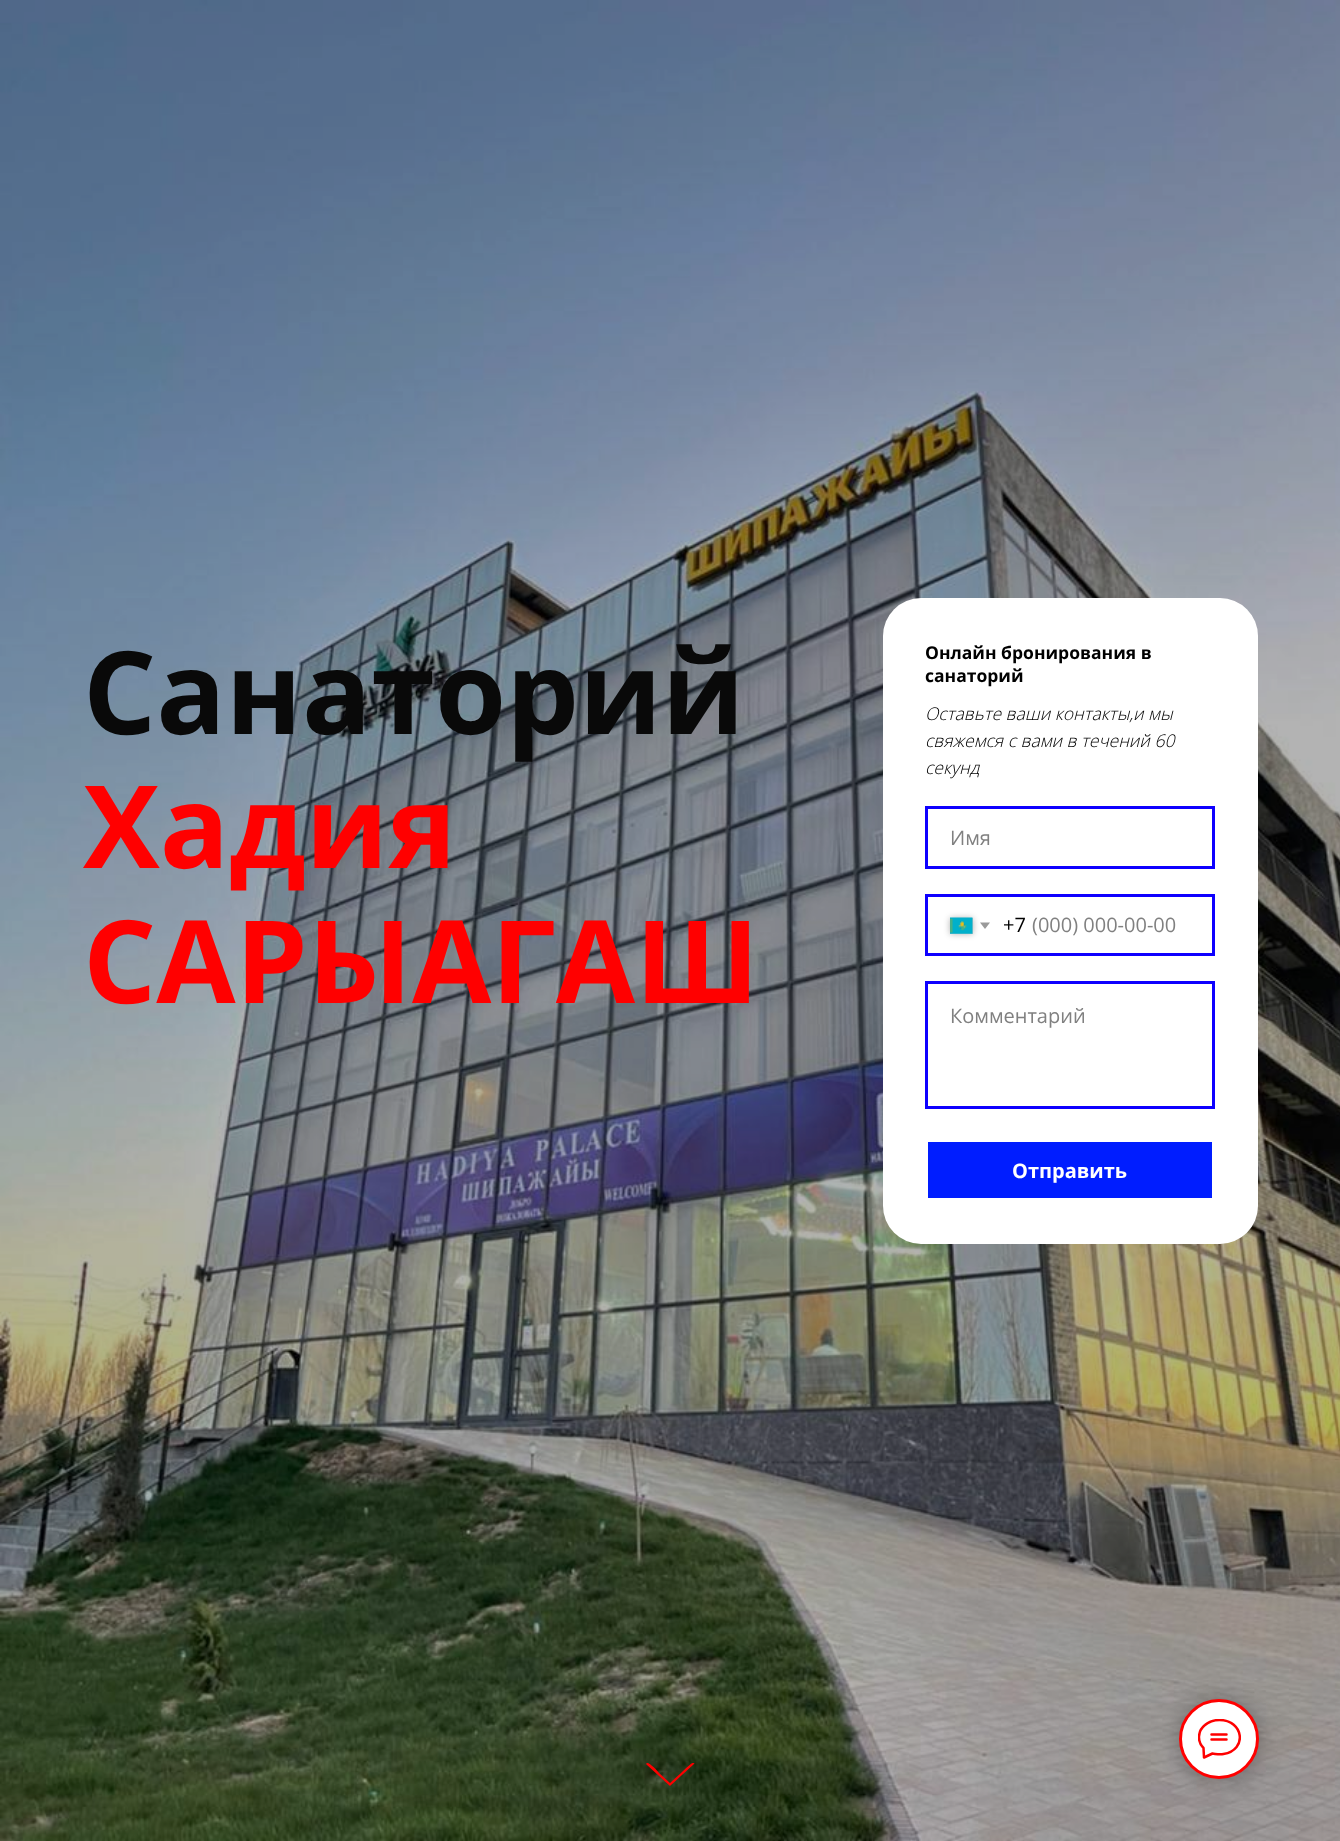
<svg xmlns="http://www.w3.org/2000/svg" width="1340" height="1841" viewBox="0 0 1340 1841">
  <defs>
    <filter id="blur1" x="-50%" y="-200%" width="200%" height="500%"><feGaussianBlur stdDeviation="3"/></filter>
    <filter id="blur2" x="-50%" y="-200%" width="200%" height="500%"><feGaussianBlur stdDeviation="12.5"/></filter>
    <clipPath id="clip1"><rect x="1198" y="1719" width="43" height="40"/></clipPath>
  </defs>
  <rect width="100%" height="100%" fill="#ffffff"/>
  <image x="0" y="0" width="1340" height="1841" href="img1.png"/>
  <text x="83" y="734" font-family="Open Sans" font-size="115" font-weight="bold" fill="#090909">Санаторий</text>
  <text x="83" y="868" font-family="Open Sans" font-size="115" font-weight="bold" fill="#ff0000">Хадия</text>
  <text x="83" y="1003" font-family="Open Sans" font-size="115" font-weight="bold" fill="#ff0000">САРЫАГАШ</text>
  <rect x="883" y="598" width="375" height="646" rx="38" fill="#ffffff"/>
  <text x="925" y="659" font-family="Open Sans" font-size="17.5" font-weight="bold" fill="#000000">Онлайн бронирования в</text>
  <text x="925" y="682" font-family="Open Sans" font-size="17.5" font-weight="bold" fill="#000000">санаторий</text>
  <text x="925" y="720" font-family="Open Sans" font-size="17.5" font-weight="300" font-style="italic" fill="#000000">Оставьте ваши контакты,и мы</text>
  <text x="925" y="747" font-family="Open Sans" font-size="17.5" font-weight="300" font-style="italic" fill="#000000">свяжемся с вами в течений 60</text>
  <text x="925" y="774" font-family="Open Sans" font-size="17.5" font-weight="300" font-style="italic" fill="#000000">секунд</text>
  <rect x="926.5" y="807.5" width="287" height="60" fill="none" stroke="#0e00ff" stroke-width="3"/>
  <text x="950" y="845" font-family="Open Sans" font-size="20" fill="#808080">Имя</text>
  <rect x="926.5" y="895.5" width="287" height="59" fill="none" stroke="#0e00ff" stroke-width="3"/>
  <rect x="950" y="918" width="23" height="16" fill="#000000" fill-opacity="0.3" filter="url(#blur1)"/>
  <rect x="950" y="918" width="23" height="16" fill="#c5c5c5"/>
  <image x="950" y="917" width="23" height="17" href="img2.png"/>
  <path d="M980 922.5H990L985 929Z" fill="#9a9a9a"/>
  <text x="1003" y="932" font-family="Open Sans" font-size="20" fill="#000000">+7</text>
  <text x="1032" y="932" font-family="Open Sans" font-size="20" fill="#808080">(000) 000-00-00</text>
  <rect x="926.5" y="982.5" width="287" height="125" fill="none" stroke="#0e00ff" stroke-width="3"/>
  <text x="950" y="1023" font-family="Open Sans" font-size="20" fill="#808080">Комментарий</text>
  <rect x="928" y="1142" width="284" height="56" fill="#001dff"/>
  <text x="1012" y="1178" font-family="Open Sans" font-size="20" font-weight="bold" fill="#ffffff">Отправить</text>
  <path d="M670 1786L647 1765C646 1764 646 1763 647 1763C649 1762 658 1771 659 1773L670 1783L681 1773C683 1771 692 1762 693 1763C694 1763 695 1764 694 1764Z" fill="#ff0000"/>
  <rect x="1179" y="1699" width="80" height="80" rx="40" fill="#000000" fill-opacity="0.3" filter="url(#blur2)"/>
  <circle cx="1219" cy="1739" r="38.5" fill="#ffffff" stroke="#ff0000" stroke-width="3"/>
  <g clip-path="url(#clip1)">
    <path d="M1211.5 1734.5H1226.5M1211.5 1739.5H1226.5M1203.5 1748C1197 1741.5 1197.5 1731 1205 1725C1209 1721.5 1214 1720 1219.5 1720C1243.5 1720 1248 1750 1223.5 1754C1219.5 1755 1216.5 1754 1212.5 1753.5L1204 1757.5Z" fill="none" stroke="#ff0000" stroke-width="2.5" stroke-linecap="round" stroke-linejoin="round"/>
  </g>
</svg>
